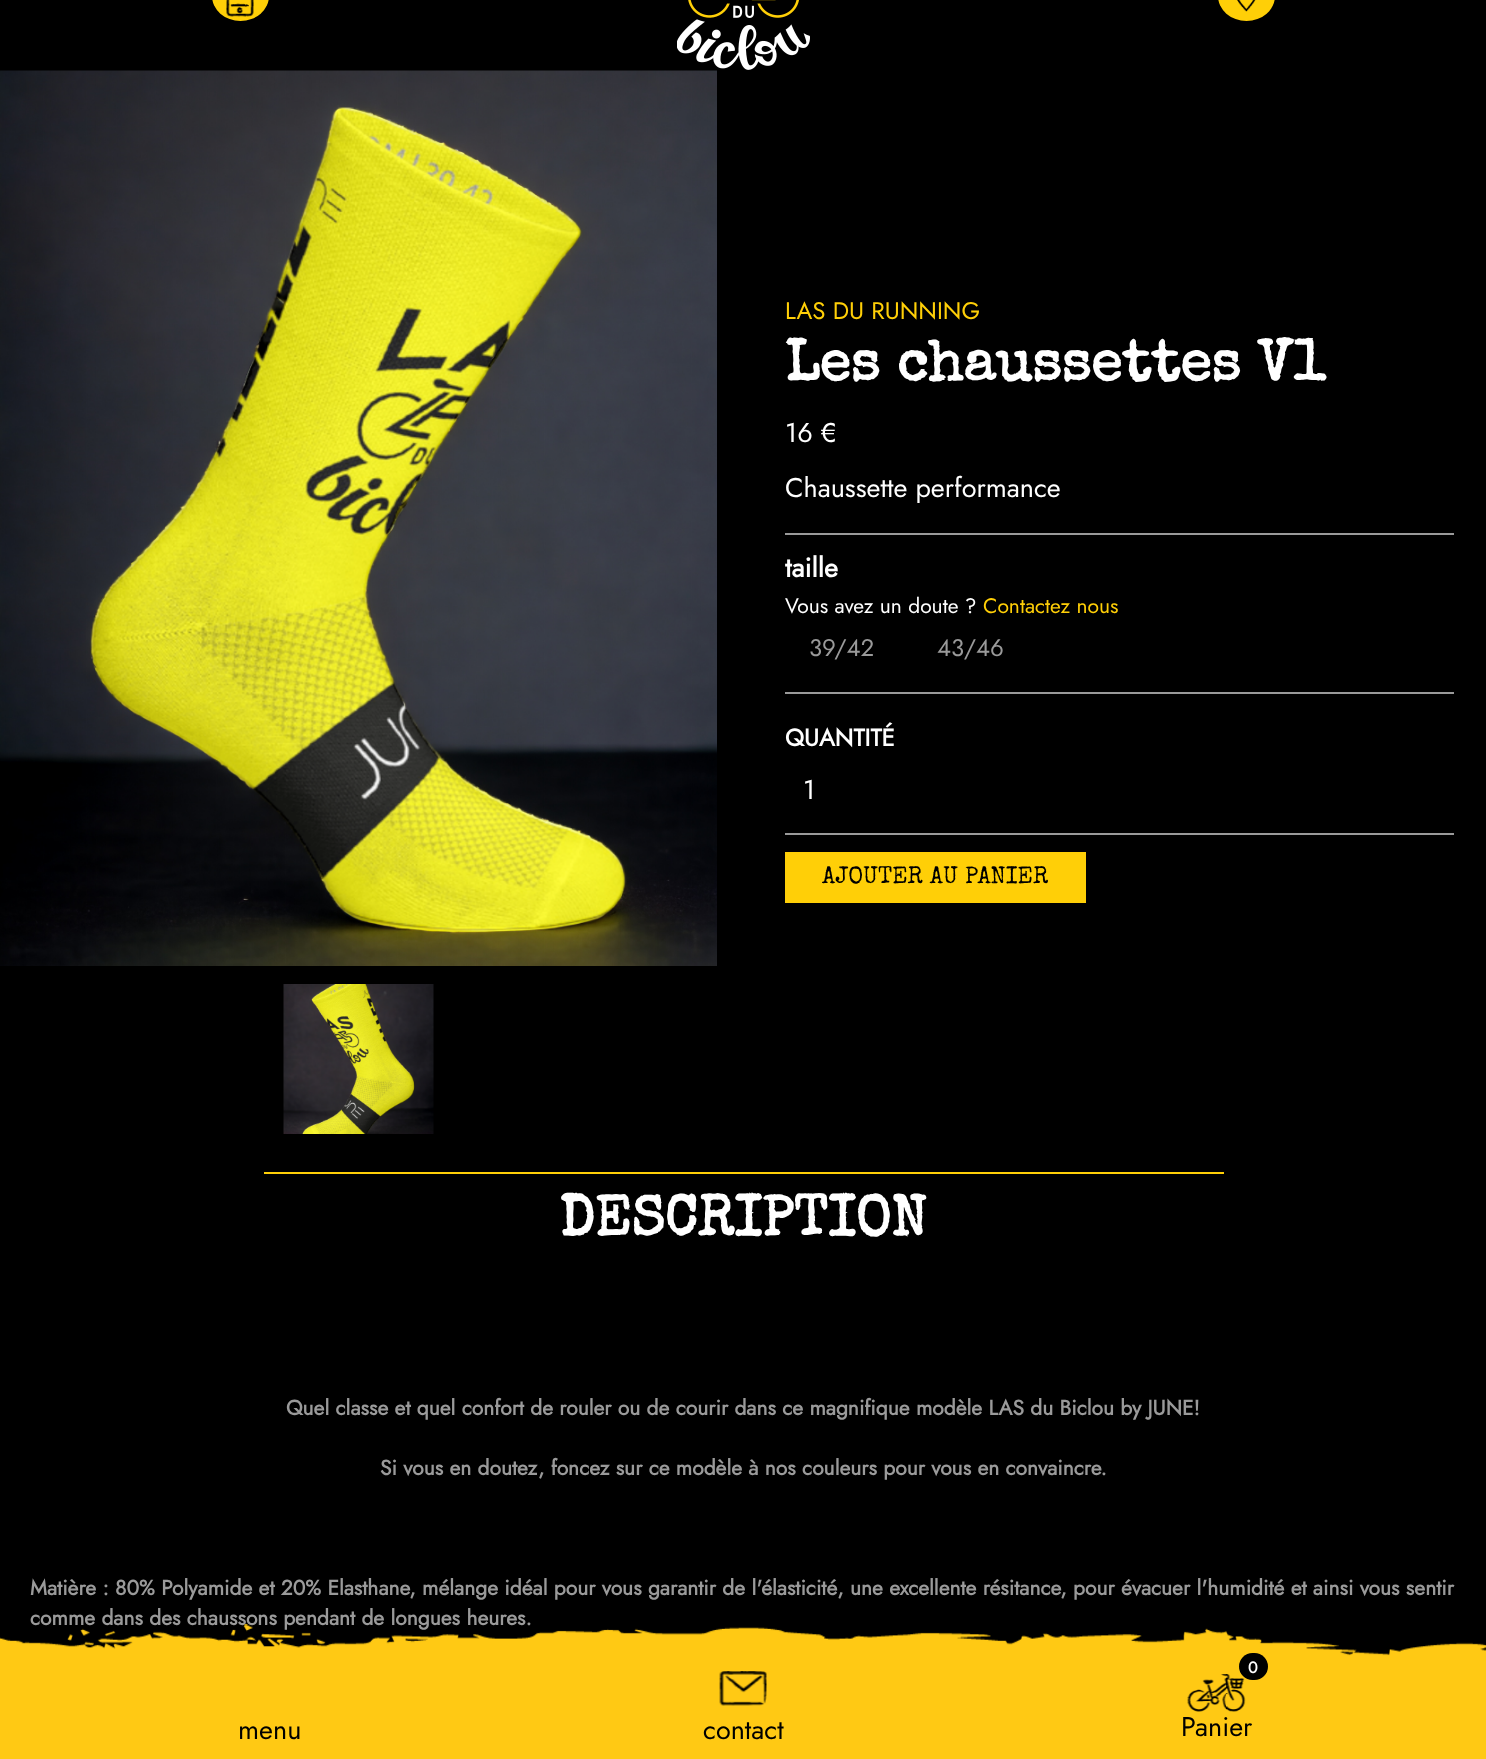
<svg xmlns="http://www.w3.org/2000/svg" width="1486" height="1759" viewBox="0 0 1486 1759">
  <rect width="100%" height="100%" fill="#000000"/>
  <image x="0" y="70" width="717" height="896" href="img1.png"/>
  <image x="283" y="984" width="151" height="150" href="img2.png"/>
  <text x="785" y="319" font-family="Jost" font-size="24" fill="#ffcf07">LAS DU RUNNING</text>
  <text x="785" y="380" font-family="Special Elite" font-size="57" font-weight="bold" fill="#ffffff">Les chaussettes V1</text>
  <text x="785" y="442" font-family="Jost" font-size="27" fill="#ffffff">16 €</text>
  <text x="785" y="497" font-family="Jost" font-size="27" fill="#ffffff">Chaussette performance</text>
  <rect x="785" y="533" width="669" height="2" fill="#9a9a9a"/>
  <rect x="785" y="692" width="669" height="2" fill="#9a9a9a"/>
  <text x="785" y="577" font-family="Jost" font-size="27" font-weight="bold" fill="#ffffff">taille</text>
  <text x="785" y="613" font-family="Jost" font-size="21" fill="#ffffff">Vous avez un doute ?</text>
  <text x="983" y="613" font-family="Jost" font-size="21" fill="#ffcf07">Contactez nous</text>
  <text x="809" y="656" font-family="Jost" font-size="24" fill="#9a9a9a">39/42</text>
  <text x="937" y="656" font-family="Jost" font-size="24" fill="#9a9a9a">43/46</text>
  <rect x="785" y="833" width="669" height="2" fill="#9a9a9a"/>
  <text x="785" y="746" font-family="Jost" font-size="24" font-weight="bold" fill="#ffffff">QUANTITÉ</text>
  <text x="803" y="799" font-family="Jost" font-size="27" fill="#ffffff">1</text>
  <rect x="785" y="852" width="301" height="51" fill="#ffcf07"/>
  <text x="822" y="883" font-family="Special Elite" font-size="24" fill="#000000">AJOUTER AU PANIER</text>
  <rect x="264" y="1172" width="960" height="2" fill="#ffcf07"/>
  <text x="559" y="1235" font-family="Special Elite" font-size="57" font-weight="bold" fill="#ffffff">DESCRIPTION</text>
  <text x="286" y="1415" font-family="Jost" font-size="21" font-weight="bold" fill="#9a9a9a">Quel classe et quel confort de rouler ou de courir dans ce magnifique modèle LAS du Biclou by JUNE!</text>
  <text x="380" y="1475" font-family="Jost" font-size="21" font-weight="bold" fill="#9a9a9a">Si vous en doutez, foncez sur ce modèle à nos couleurs pour vous en convaincre.</text>
  <text x="30" y="1595" font-family="Jost" font-size="21" font-weight="bold" fill="#9a9a9a">Matière : 80% Polyamide et 20% Elasthane, mélange idéal pour vous garantir de l'élasticité, une excellente résitance, pour évacuer l'humidité et ainsi vous sentir</text>
  <text x="30" y="1625" font-family="Jost" font-size="21" font-weight="bold" fill="#9a9a9a">comme dans des chaussons pendant de longues heures.</text>
  <rect x="212" y="-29" width="57" height="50" rx="28.5" fill="#ffcf07"/>
  <image x="226" y="0" width="28" height="17" href="img3.png"/>
  <image x="677" y="0" width="133" height="70" href="img4.png"/>
  <rect x="1218" y="-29" width="57" height="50" rx="28.5" fill="#ffcf07"/>
  <image x="1237" y="0" width="19" height="12" href="img5.png"/>
  <image x="0" y="1624" width="1486" height="135" href="img6.png"/>
  <text x="238" y="1739" font-family="Jost" font-size="27" fill="#000000">menu</text>
  <image x="719" y="1671" width="48" height="35" href="img7.png"/>
  <text x="703" y="1739" font-family="Jost" font-size="27" fill="#000000">contact</text>
  <image x="1187" y="1674" width="59" height="38" href="img8.png"/>
  <rect x="1239" y="1653" width="29" height="27" rx="13.5" fill="#000000"/>
  <text x="1248" y="1673" font-family="Jost" font-size="16" font-weight="bold" fill="#ffffff">0</text>
  <text x="1181" y="1736" font-family="Jost" font-size="27" fill="#000000">Panier</text>
</svg>
